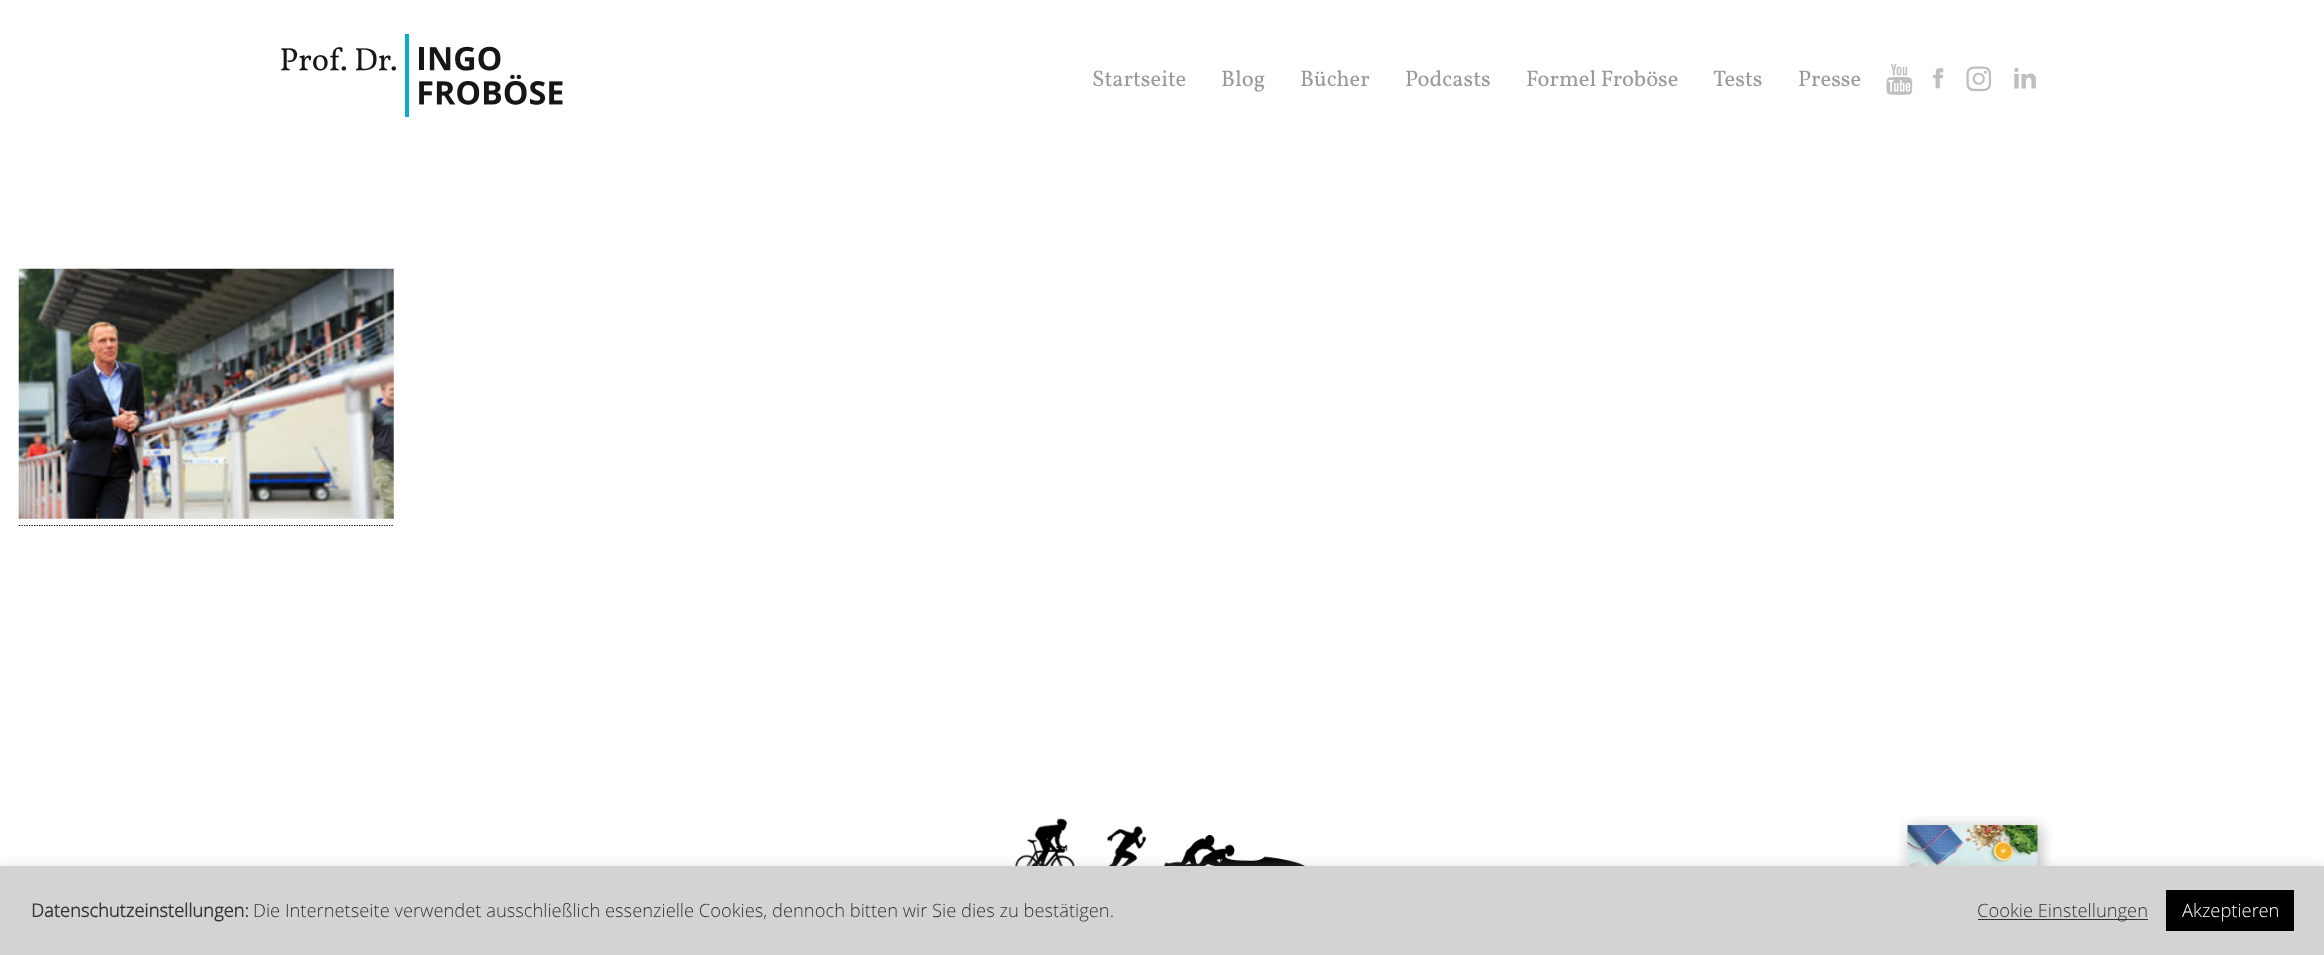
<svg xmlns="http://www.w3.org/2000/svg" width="2324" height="955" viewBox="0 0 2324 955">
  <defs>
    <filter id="blur1" x="-50%" y="-200%" width="200%" height="500%"><feGaussianBlur stdDeviation="6"/></filter>
  </defs>
  <rect width="100%" height="100%" fill="#ffffff"/>
  <image x="281" y="34" width="282" height="83" href="img1.png"/>
  <text x="1092" y="86" font-family="Vollkorn" font-size="22.5" fill="#9a9a9a">Startseite</text>
  <text x="1221" y="86" font-family="Vollkorn" font-size="22.5" fill="#9a9a9a">Blog</text>
  <text x="1300" y="86" font-family="Vollkorn" font-size="22.5" fill="#9a9a9a">Bücher</text>
  <text x="1405" y="86" font-family="Vollkorn" font-size="22.5" fill="#9a9a9a">Podcasts</text>
  <text x="1526" y="86" font-family="Vollkorn" font-size="22.5" fill="#9a9a9a">Formel Froböse</text>
  <text x="1713" y="86" font-family="Vollkorn" font-size="22.5" fill="#9a9a9a">Tests</text>
  <text x="1798" y="86" font-family="Vollkorn" font-size="22.5" fill="#9a9a9a">Presse</text>
  <image x="1886" y="64" width="27" height="31" href="img2.png"/>
  <image x="1933" y="68" width="11" height="21" href="img3.png"/>
  <image x="1966" y="66" width="25" height="26" href="img4.png"/>
  <image x="2014" y="67" width="22" height="22" href="img5.png"/>
  <image x="18" y="268" width="376" height="251" href="img6.png"/>
  <path d="M19 525.5H394" fill="none" stroke="#000000" stroke-width="1.2" stroke-dasharray="1.25 1.25"/>
  <image x="1015" y="818" width="291" height="48" href="img7.png"/>
  <image x="1898" y="816" width="154" height="50" href="img8.png"/>
  <rect x="0" y="865" width="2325" height="89" fill="#acabab" fill-opacity="0.3" filter="url(#blur1)"/>
  <rect x="0" y="866" width="2324" height="89" fill="#d3d3d3"/>
  <text x="31" y="917" font-family="Open Sans" font-size="18.35" font-weight="bold" fill="#333333">Datenschutzeinstellungen:</text>
  <text x="253" y="917" font-family="Open Sans" font-size="18.35" font-weight="300" fill="#333333">Die Internetseite verwendet ausschließlich essenzielle Cookies, dennoch bitten wir Sie dies zu bestätigen.</text>
  <rect x="1978" y="919" width="170" height="1" fill="#333333"/>
  <text x="1977" y="917" font-family="Open Sans" font-size="18.35" font-weight="300" fill="#333333">Cookie Einstellungen</text>
  <rect x="2166" y="890" width="128" height="41" fill="#000000"/>
  <text x="2182" y="917" font-family="Open Sans" font-size="18.35" font-weight="300" fill="#ffffff">Akzeptieren</text>
</svg>
